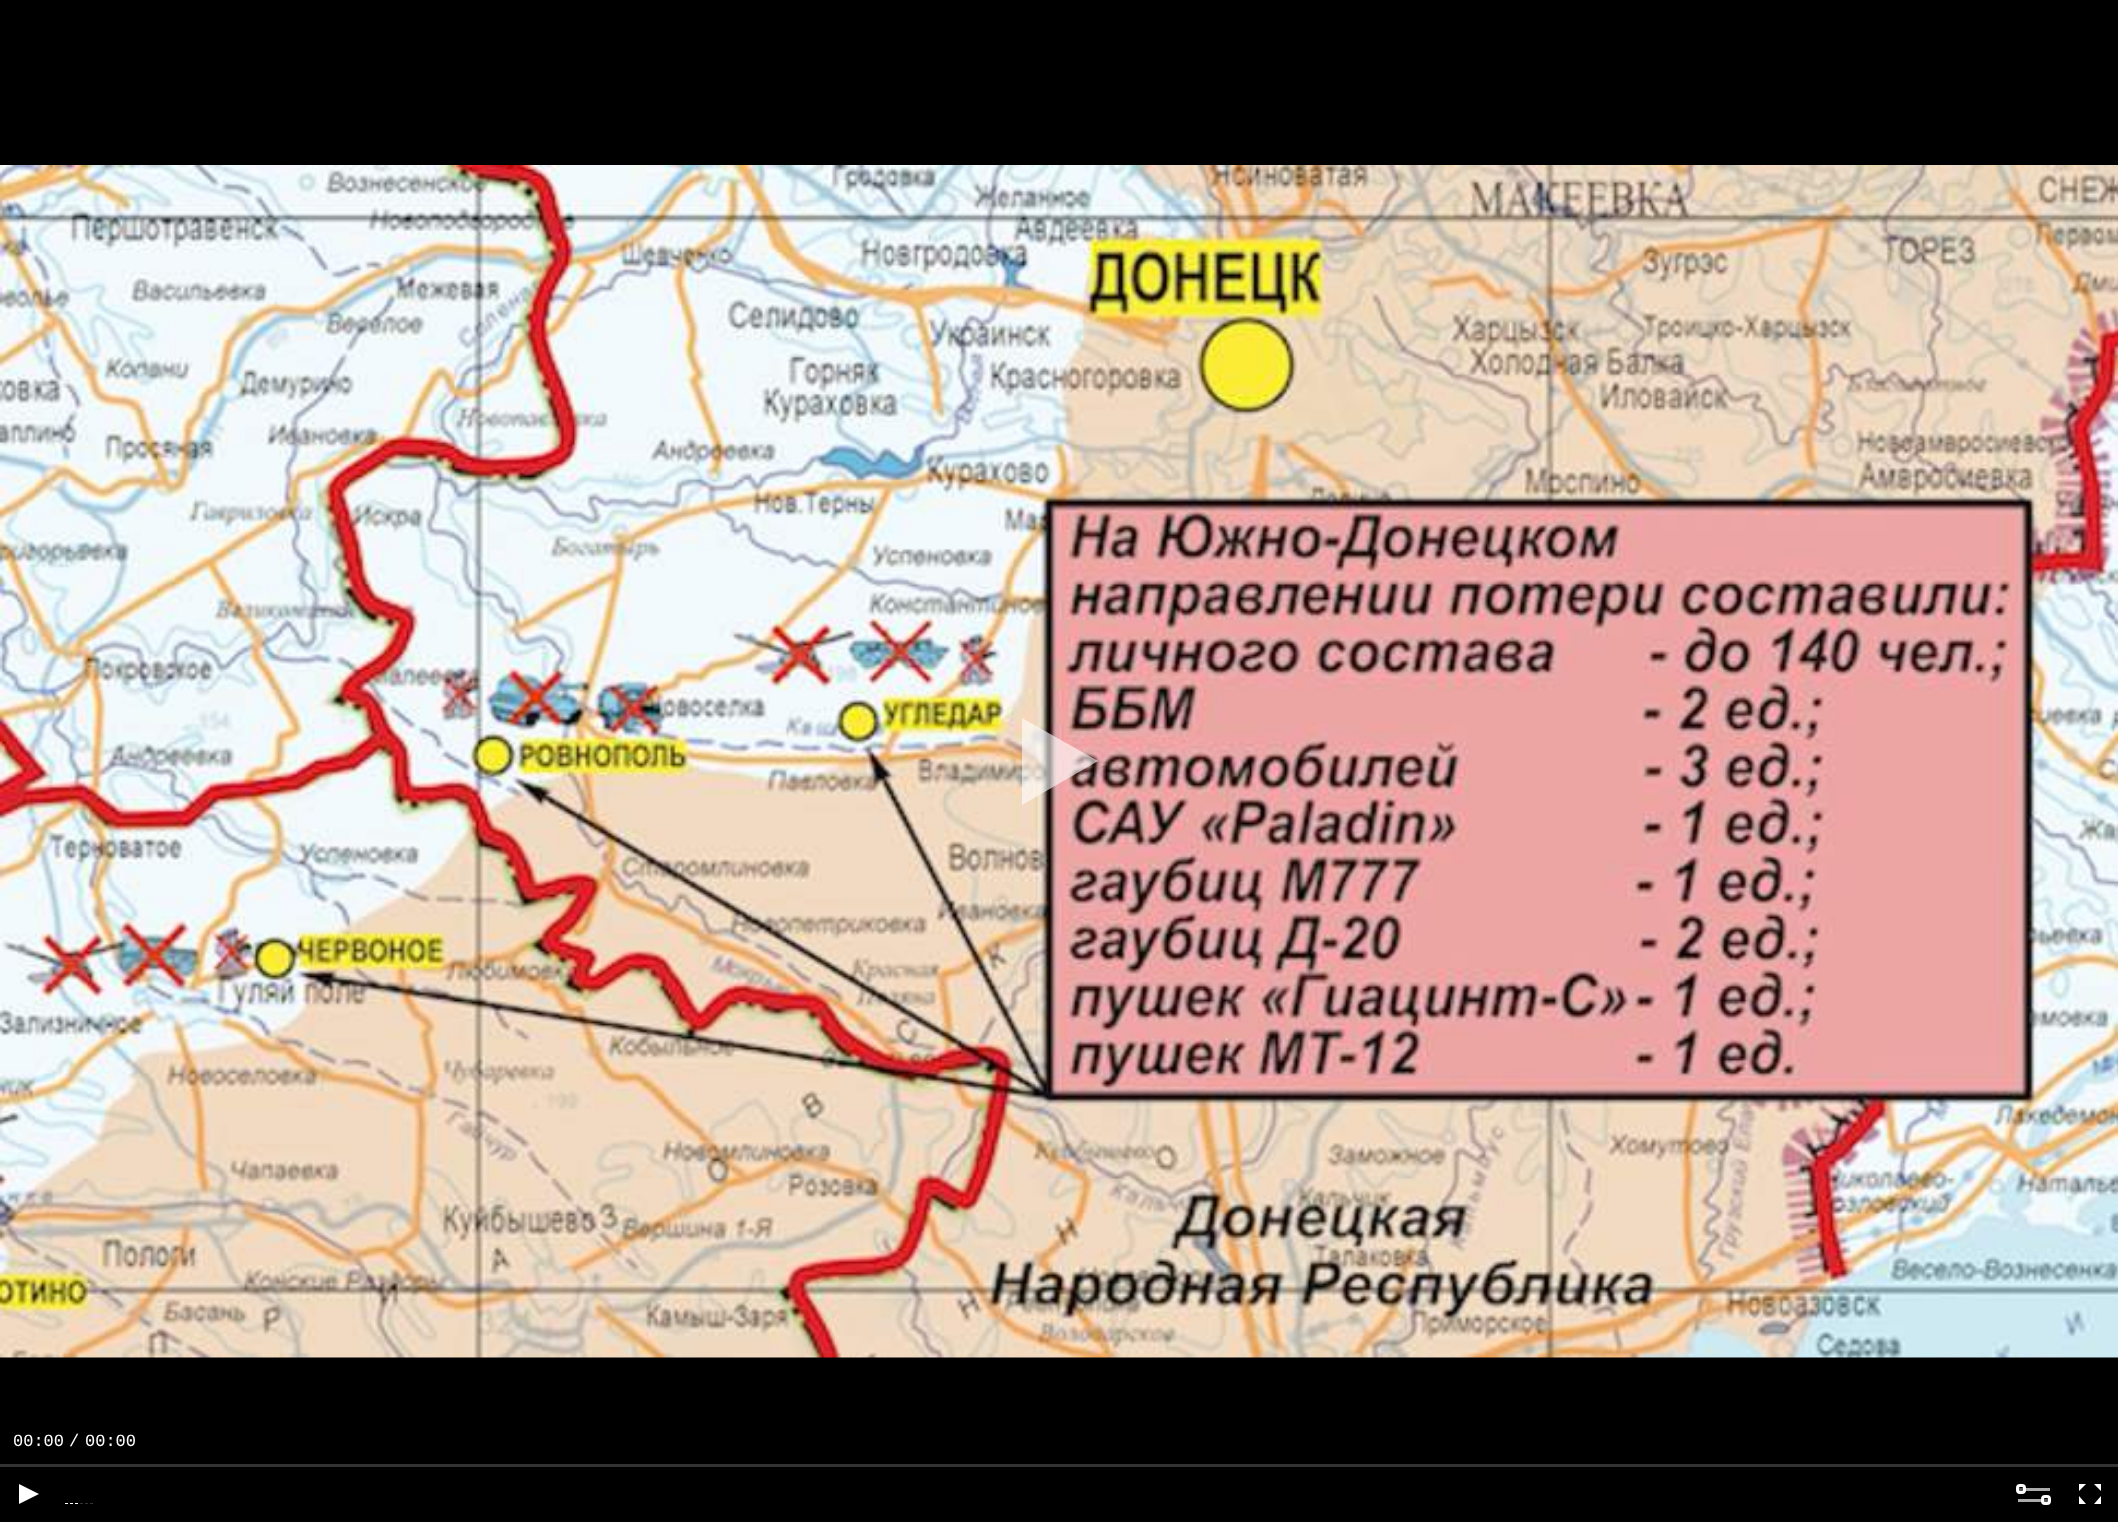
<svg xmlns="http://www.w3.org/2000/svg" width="2118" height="1522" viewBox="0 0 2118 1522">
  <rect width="100%" height="100%" fill="#000000"/>
  <image x="0" y="165" width="2118" height="1193" href="img1.png"/>
  <path d="M1022 805V718L1098 761Z" fill="#ffffff" fill-opacity="0.6"/>
  <text x="13" y="1446" font-family="Liberation Mono" font-size="17" fill="#ffffff">00:00</text>
  <text x="69" y="1446" font-family="Liberation Mono" font-size="17" fill="#ffffff">/</text>
  <text x="85" y="1446" font-family="Liberation Mono" font-size="17" fill="#ffffff">00:00</text>
  <path d="M19 1504V1484L39 1494Z" fill="#ffffff"/>
  <rect x="65" y="1503" width="3" height="1" fill="#ffffff"/>
  <rect x="70" y="1503" width="3" height="1" fill="#ffffff"/>
  <rect x="75" y="1503" width="3" height="1" fill="#ffffff"/>
  <rect x="80" y="1503" width="3" height="1" fill="#333333"/>
  <rect x="85" y="1503" width="3" height="1" fill="#333333"/>
  <rect x="90" y="1503" width="3" height="1" fill="#333333"/>
  <rect x="2018" y="1488" width="32" height="3" fill="#ababab"/>
  <rect x="2018" y="1499" width="32" height="3" fill="#ababab"/>
  <rect x="2017.5" y="1485.5" width="7" height="7" rx="2.5" fill="#000000" fill-opacity="0.5" stroke="#ffffff" stroke-width="3"/>
  <rect x="2042.5" y="1496.5" width="7" height="7" rx="2.5" fill="#000000" fill-opacity="0.5" stroke="#ffffff" stroke-width="3"/>
  <path d="M2101 1484V1491L2094 1484ZM2079 1491V1484H2086ZM2101 1496V1504H2094Z" fill="#ffffff"/>
  <path d="M2079 1504V1496L2086 1504Z" fill="#ffffff"/>
  <rect x="0" y="1464" width="2118" height="3" fill="#333333"/>
</svg>
